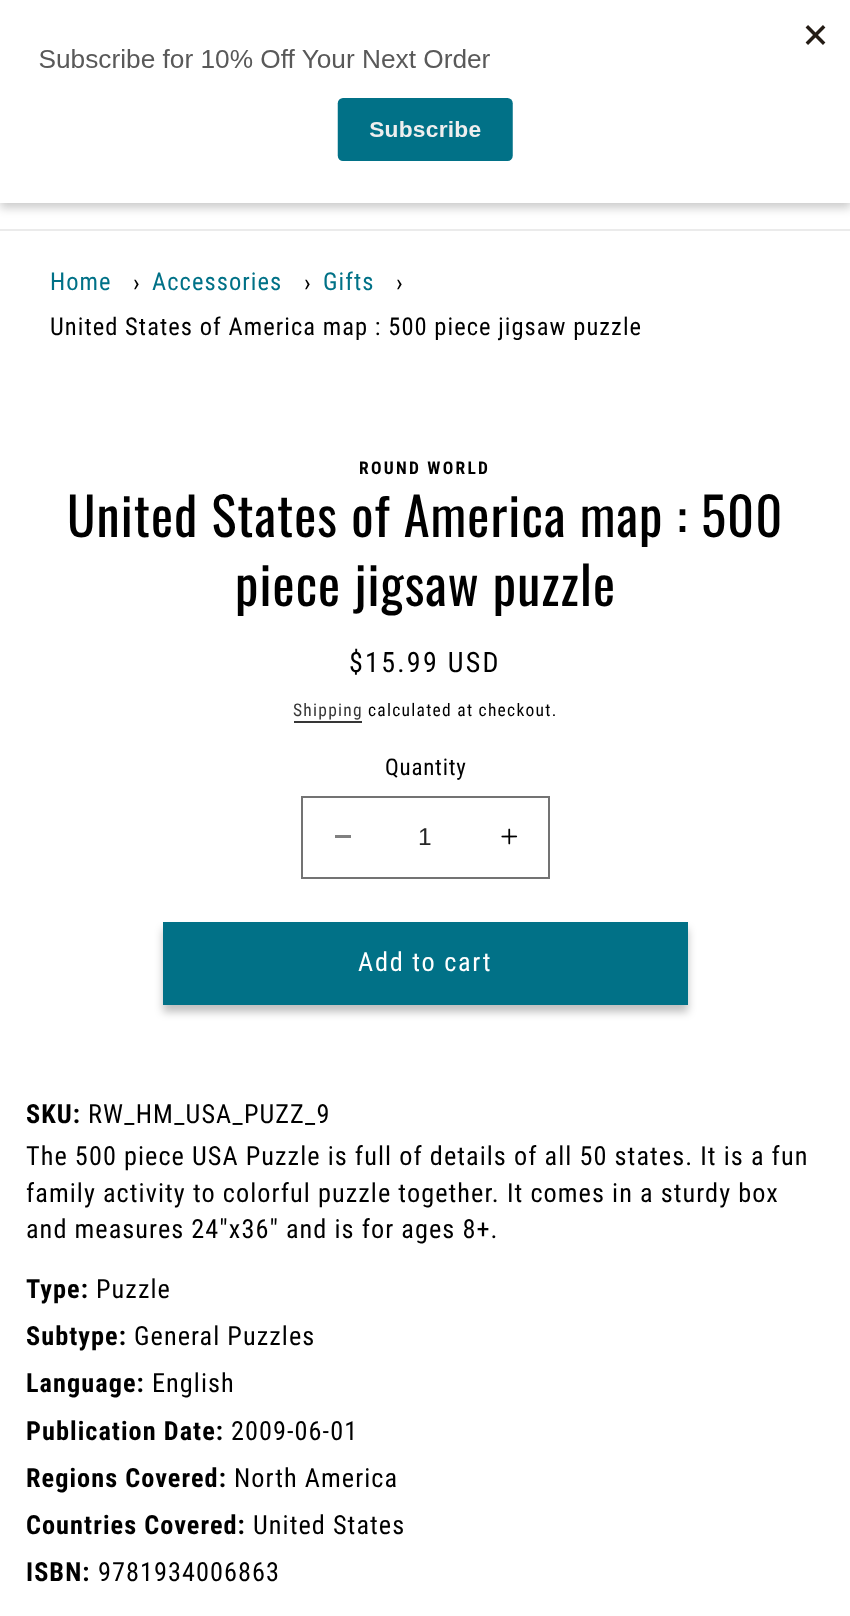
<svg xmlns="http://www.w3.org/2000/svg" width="850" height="1616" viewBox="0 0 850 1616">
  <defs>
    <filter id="blur1" x="-50%" y="-200%" width="200%" height="500%"><feGaussianBlur stdDeviation="5"/></filter>
    <filter id="blur2" x="-50%" y="-200%" width="200%" height="500%"><feGaussianBlur stdDeviation="4.5"/></filter>
  </defs>
  <rect width="100%" height="100%" fill="#ffffff"/>
  <rect x="0" y="5" width="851" height="203" fill="#000000" fill-opacity="0.2" filter="url(#blur1)"/>
  <rect x="0" y="0" width="850" height="203" fill="#ffffff"/>
  <image x="39" y="25" width="787" height="136" href="img1.png"/>
  <rect x="0" y="229" width="850" height="2" fill="#ebebeb"/>
  <text x="50" y="290" font-family="Roboto Condensed" font-size="24.5" letter-spacing="1.05" fill="#007187">Home</text>
  <text x="133" y="291" font-family="Roboto Condensed" font-size="24.5" letter-spacing="1.05" fill="#000000">›</text>
  <text x="152" y="290" font-family="Roboto Condensed" font-size="24.5" letter-spacing="1.05" fill="#007187">Accessories</text>
  <text x="304" y="291" font-family="Roboto Condensed" font-size="24.5" letter-spacing="1.05" fill="#000000">›</text>
  <text x="323" y="290" font-family="Roboto Condensed" font-size="24.5" letter-spacing="1.05" fill="#007187">Gifts</text>
  <text x="396" y="291" font-family="Roboto Condensed" font-size="24.5" letter-spacing="1.05" fill="#000000">›</text>
  <text x="50" y="335" font-family="Roboto Condensed" font-size="24.5" letter-spacing="1.05" fill="#000000">United States of America map : 500 piece jigsaw puzzle</text>
  <text x="359" y="474" font-family="Roboto Condensed" font-size="17.5" font-weight="bold" letter-spacing="2.25" fill="#000000">ROUND WORLD</text>
  <text x="67" y="537" font-family="Oswald" font-size="52.5" letter-spacing="1.05" fill="#000000">United States of America map : 500</text>
  <text x="235" y="606" font-family="Oswald" font-size="52.5" letter-spacing="1.05" fill="#000000">piece jigsaw puzzle</text>
  <text x="349" y="672" font-family="Roboto Condensed" font-size="28" letter-spacing="2.25" fill="#000000">$15.99 USD</text>
  <text x="293" y="716" font-family="Roboto Condensed" font-size="17.5" letter-spacing="1.25" fill="#363636">Shipping</text>
  <rect x="294" y="721" width="68" height="2" fill="#363636"/>
  <text x="368" y="716" font-family="Roboto Condensed" font-size="17.5" letter-spacing="1.25" fill="#000000">calculated at checkout.</text>
  <text x="385" y="775" font-family="Roboto Condensed" font-size="23" letter-spacing="0.75" fill="#000000">Quantity</text>
  <rect x="335" y="835" width="16" height="3" fill="#808080"/>
  <image x="501" y="828" width="17" height="17" href="img2.png"/>
  <rect x="302" y="797" width="247" height="81" fill="none" stroke="#737373" stroke-width="2"/>
  <text x="418" y="845" font-family="Liberation Sans" font-size="24.5" fill="#262626">1</text>
  <rect x="163" y="929" width="525" height="83" fill="#000000" fill-opacity="0.25" filter="url(#blur2)"/>
  <rect x="163" y="922" width="525" height="83" fill="#017187"/>
  <text x="358" y="971" font-family="Roboto Condensed" font-size="26.25" letter-spacing="1.75" fill="#ffffff">Add to cart</text>
  <text x="26" y="1123" font-family="Roboto Condensed" font-size="26.25" font-weight="bold" letter-spacing="1.05" fill="#000000">SKU:</text>
  <text x="88" y="1123" font-family="Roboto Condensed" font-size="26.25" letter-spacing="1.05" fill="#000000">RW_HM_USA_PUZZ_9</text>
  <text x="26" y="1165" font-family="Roboto Condensed" font-size="26.25" letter-spacing="1.05" fill="#000000">The 500 piece USA Puzzle is full of details of all 50 states. It is a fun</text>
  <text x="26" y="1202" font-family="Roboto Condensed" font-size="26.25" letter-spacing="1.05" fill="#000000">family activity to colorful puzzle together. It comes in a sturdy box</text>
  <text x="26" y="1238" font-family="Roboto Condensed" font-size="26.25" letter-spacing="1.05" fill="#000000">and measures 24"x36" and is for ages 8+.</text>
  <text x="26" y="1298" font-family="Roboto Condensed" font-size="26.25" font-weight="bold" letter-spacing="1.05" fill="#000000">Type:</text>
  <text x="96" y="1298" font-family="Roboto Condensed" font-size="26.25" letter-spacing="1.05" fill="#000000">Puzzle</text>
  <text x="26" y="1345" font-family="Roboto Condensed" font-size="26.25" font-weight="bold" letter-spacing="1.05" fill="#000000">Subtype:</text>
  <text x="134" y="1345" font-family="Roboto Condensed" font-size="26.25" letter-spacing="1.05" fill="#000000">General Puzzles</text>
  <text x="26" y="1392" font-family="Roboto Condensed" font-size="26.25" font-weight="bold" letter-spacing="1.05" fill="#000000">Language:</text>
  <text x="152" y="1392" font-family="Roboto Condensed" font-size="26.25" letter-spacing="1.05" fill="#000000">English</text>
  <text x="26" y="1440" font-family="Roboto Condensed" font-size="26.25" font-weight="bold" letter-spacing="1.05" fill="#000000">Publication Date:</text>
  <text x="231" y="1440" font-family="Roboto Condensed" font-size="26.25" letter-spacing="1.05" fill="#000000">2009-06-01</text>
  <text x="26" y="1487" font-family="Roboto Condensed" font-size="26.25" font-weight="bold" letter-spacing="1.05" fill="#000000">Regions Covered:</text>
  <text x="234" y="1487" font-family="Roboto Condensed" font-size="26.25" letter-spacing="1.05" fill="#000000">North America</text>
  <text x="26" y="1534" font-family="Roboto Condensed" font-size="26.25" font-weight="bold" letter-spacing="1.05" fill="#000000">Countries Covered:</text>
  <text x="253" y="1534" font-family="Roboto Condensed" font-size="26.25" letter-spacing="1.05" fill="#000000">United States</text>
  <text x="26" y="1581" font-family="Roboto Condensed" font-size="26.25" font-weight="bold" letter-spacing="1.05" fill="#000000">ISBN:</text>
  <text x="98" y="1581" font-family="Roboto Condensed" font-size="26.25" letter-spacing="1.05" fill="#000000">9781934006863</text>
</svg>
